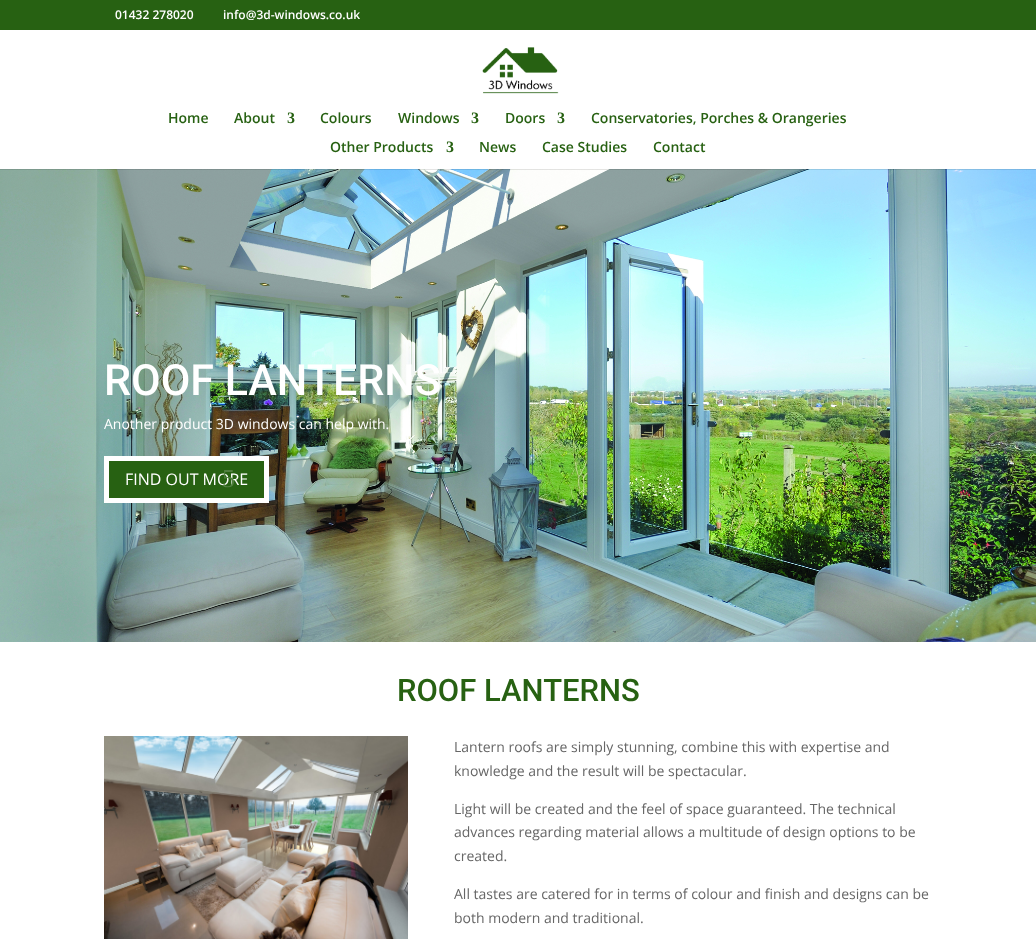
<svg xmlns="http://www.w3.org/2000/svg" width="1036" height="943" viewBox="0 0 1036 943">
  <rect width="100%" height="100%" fill="#276112"/>
  <text x="115" y="19" font-family="Open Sans" font-size="12" font-weight="600" fill="#ffffff">01432 278020</text>
  <text x="223" y="19" font-family="Open Sans" font-size="12" font-weight="600" fill="#ffffff">info@3d-windows.co.uk</text>
  <image x="0" y="169" width="1036" height="473" href="img2.png"/>
  <rect x="0" y="169" width="1036" height="1" fill="#000000" fill-opacity="0.1"/>
  <rect x="0" y="30" width="1036" height="139" fill="#ffffff"/>
  <image x="482" y="47" width="77" height="47" href="img1.png"/>
  <text x="168" y="123" font-family="Open Sans" font-size="14" font-weight="600" fill="#276112">Home</text>
  <text x="234" y="123" font-family="Open Sans" font-size="14" font-weight="600" fill="#276112">About</text>
  <text x="287" y="123" font-family="Liberation Serif" font-size="16" font-weight="bold" fill="#276112">3</text>
  <text x="320" y="123" font-family="Open Sans" font-size="14" font-weight="600" fill="#276112">Colours</text>
  <text x="398" y="123" font-family="Open Sans" font-size="14" font-weight="600" fill="#276112">Windows</text>
  <text x="471" y="123" font-family="Liberation Serif" font-size="16" font-weight="bold" fill="#276112">3</text>
  <text x="505" y="123" font-family="Open Sans" font-size="14" font-weight="600" fill="#276112">Doors</text>
  <text x="557" y="123" font-family="Liberation Serif" font-size="16" font-weight="bold" fill="#276112">3</text>
  <text x="591" y="123" font-family="Open Sans" font-size="14" font-weight="600" fill="#276112">Conservatories, Porches &amp; Orangeries</text>
  <text x="330" y="152" font-family="Open Sans" font-size="14" font-weight="600" fill="#276112">Other Products</text>
  <text x="446" y="152" font-family="Liberation Serif" font-size="16" font-weight="bold" fill="#276112">3</text>
  <text x="479" y="152" font-family="Open Sans" font-size="14" font-weight="600" fill="#276112">News</text>
  <text x="542" y="152" font-family="Open Sans" font-size="14" font-weight="600" fill="#276112">Case Studies</text>
  <text x="653" y="152" font-family="Open Sans" font-size="14" font-weight="600" fill="#276112">Contact</text>
  <text x="104" y="395" font-family="Roboto" font-size="43" font-weight="500" fill="#ffffff">ROOF LANTERNS</text>
  <text x="104" y="429" font-family="Open Sans" font-size="14" fill="#ffffff">Another product 3D windows can help with.</text>
  <rect x="106.5" y="458.5" width="160" height="42" fill="#276112" stroke="#ffffff" stroke-width="5"/>
  <text x="125" y="485" font-family="Open Sans" font-size="16" fill="#ffffff">FIND OUT MORE</text>
  <text x="222" y="487" font-family="Liberation Serif" font-size="26" fill="#517f40">5</text>
  <rect x="0" y="642" width="1036" height="301" fill="#ffffff"/>
  <text x="397" y="701" font-family="Roboto" font-size="31" font-weight="500" fill="#276112">ROOF LANTERNS</text>
  <image x="104" y="736" width="304" height="203" href="img3.png"/>
  <text x="454" y="752" font-family="Open Sans" font-size="14" fill="#666666">Lantern roofs are simply stunning, combine this with expertise and</text>
  <text x="454" y="776" font-family="Open Sans" font-size="14" fill="#666666">knowledge and the result will be spectacular.</text>
  <text x="454" y="814" font-family="Open Sans" font-size="14" fill="#666666">Light will be created and the feel of space guaranteed. The technical</text>
  <text x="454" y="837" font-family="Open Sans" font-size="14" fill="#666666">advances regarding material allows a multitude of design options to be</text>
  <text x="454" y="861" font-family="Open Sans" font-size="14" fill="#666666">created.</text>
  <text x="454" y="899" font-family="Open Sans" font-size="14" fill="#666666">All tastes are catered for in terms of colour and finish and designs can be</text>
  <text x="454" y="923" font-family="Open Sans" font-size="14" fill="#666666">both modern and traditional.</text>
</svg>
